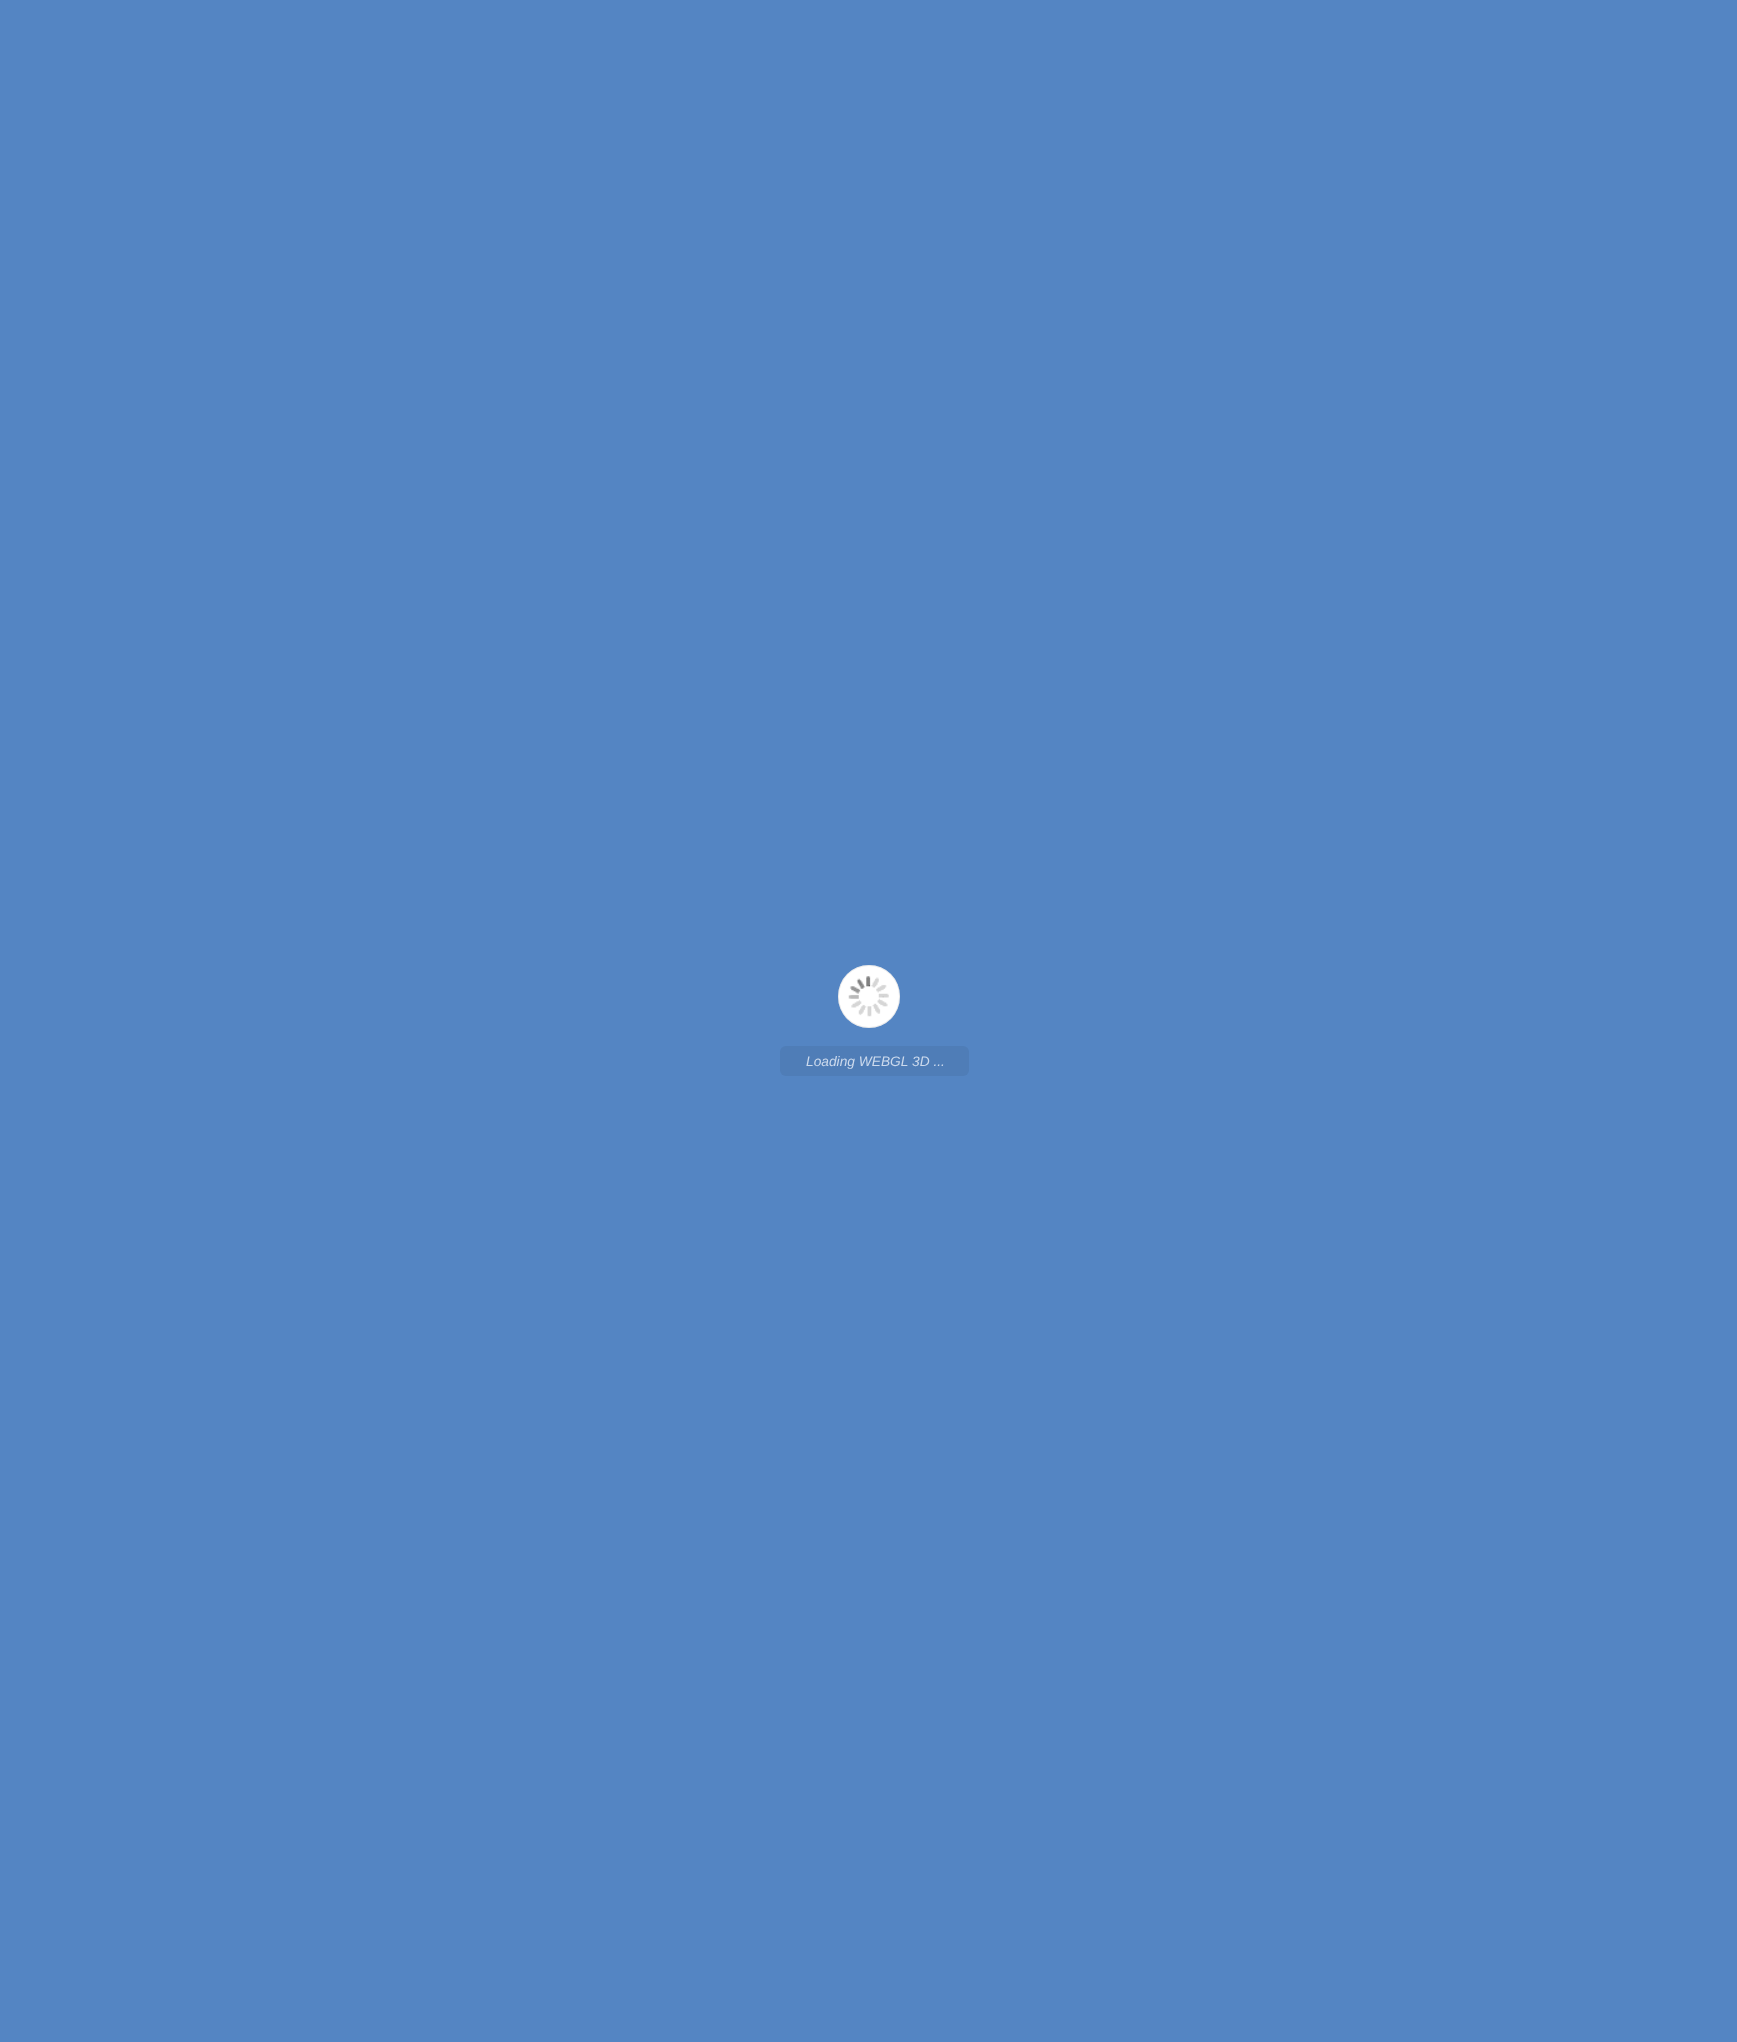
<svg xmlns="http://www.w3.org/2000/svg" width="1737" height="2042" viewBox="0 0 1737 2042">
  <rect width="100%" height="100%" fill="#5485c3"/>
  <rect x="838" y="965" width="62" height="63" rx="31" fill="#ffffff"/>
  <rect x="838.5" y="965.5" width="61" height="62" rx="30.5" fill="none" stroke="#969696" stroke-opacity="0.2"/>
  <image x="848" y="976" width="41" height="41" href="img1.png"/>
  <rect x="780" y="1046" width="189" height="30" rx="6" fill="#4f7db7"/>
  <text x="806" y="1066" font-family="Liberation Sans" font-size="13.75" font-style="italic" fill="#ccdaed">Loading WEBGL 3D ...</text>
</svg>
